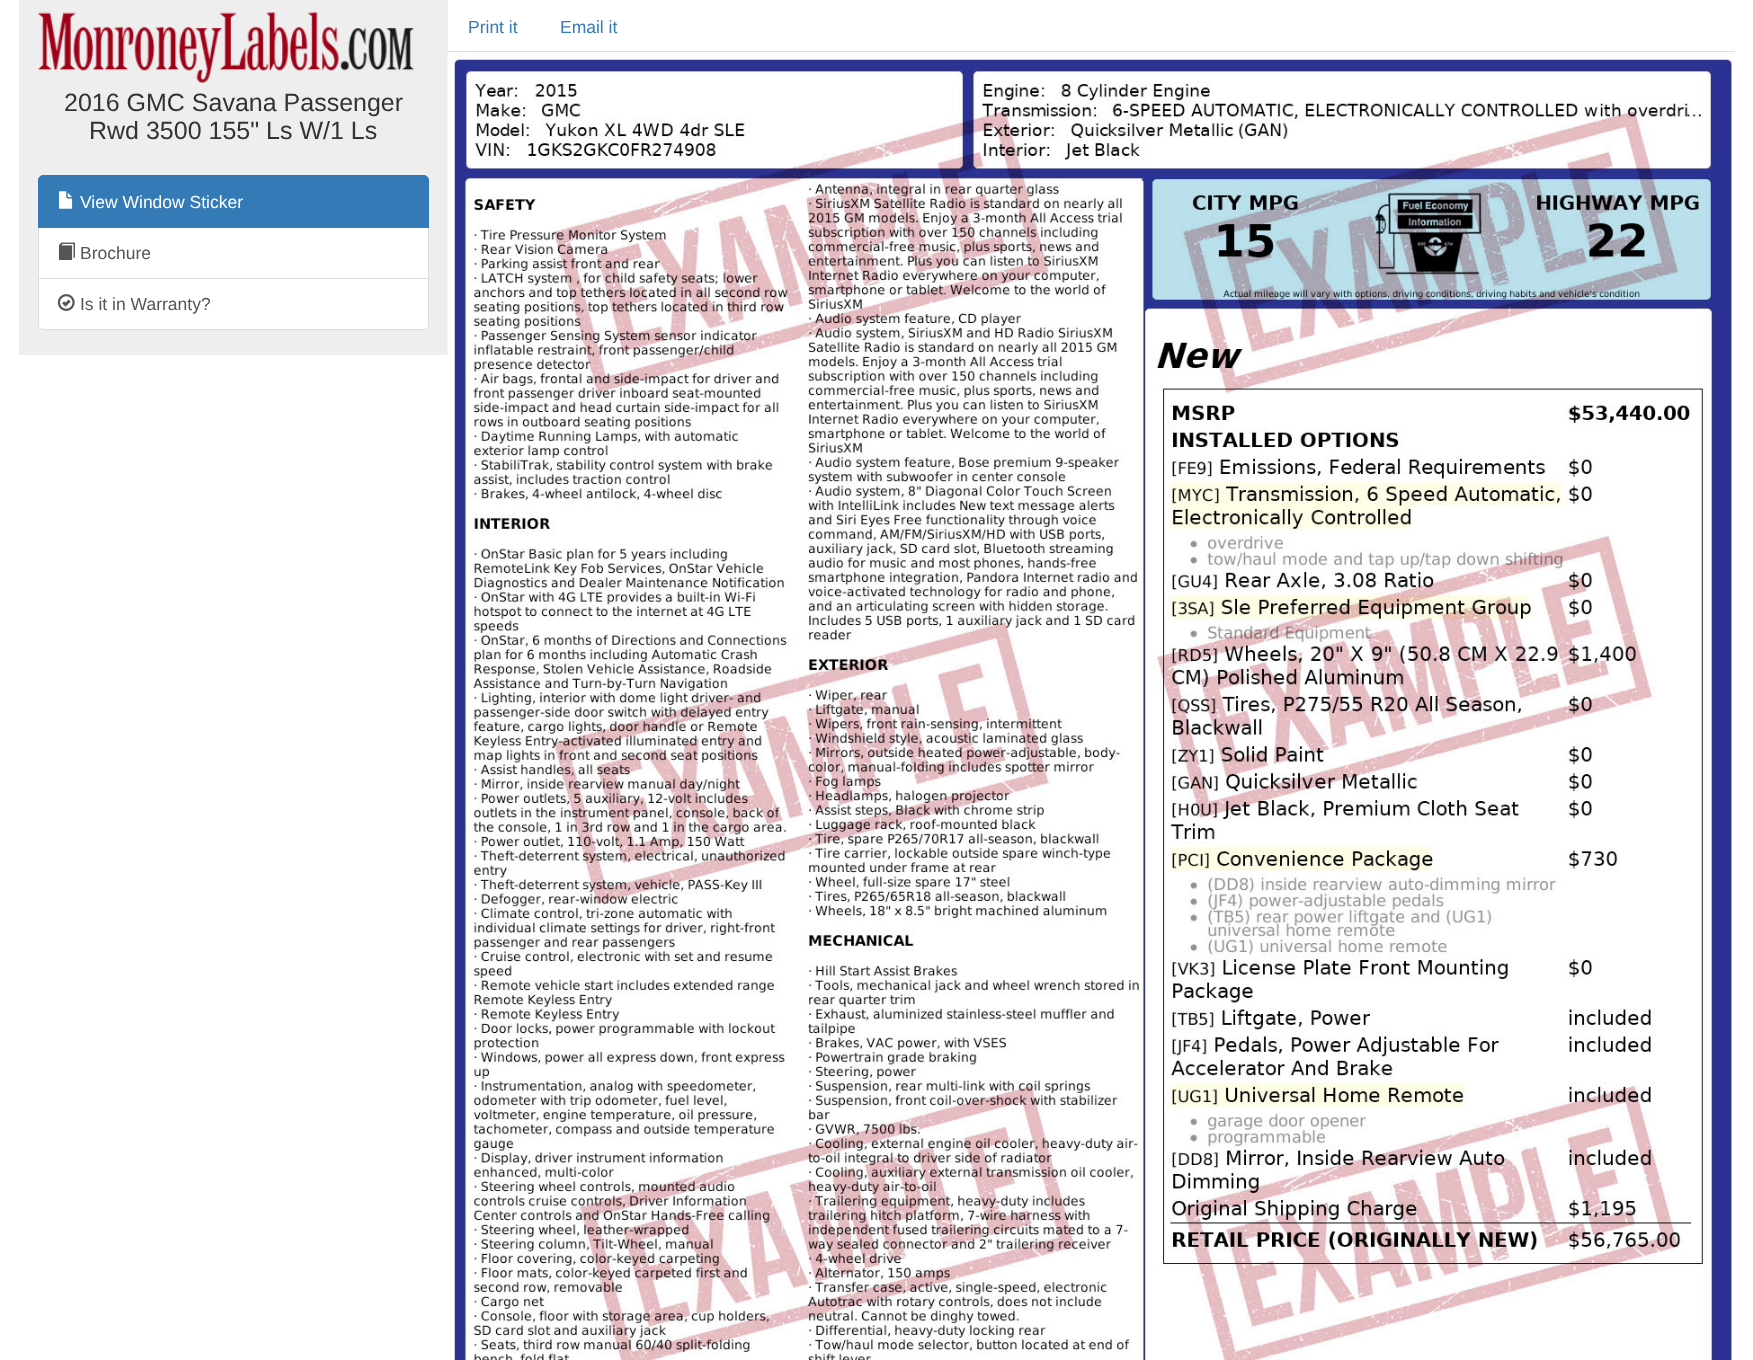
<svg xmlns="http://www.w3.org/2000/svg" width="1753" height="1360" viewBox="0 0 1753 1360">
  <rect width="100%" height="100%" fill="#ffffff"/>
  <rect x="448" y="51" width="1287" height="1" fill="#dddddd"/>
  <text x="468" y="33" font-family="Liberation Sans" font-size="17.5" fill="#337ab7">Print it</text>
  <text x="560" y="33" font-family="Liberation Sans" font-size="17.5" fill="#337ab7">Email it</text>
  <rect x="19" y="0" width="429" height="355" fill="#eeeeee"/>
  <image x="447" y="52" width="1288" height="1308" href="img1.png"/>
  <image x="37" y="12" width="378" height="71" href="img2.png"/>
  <text x="64" y="111" font-family="Liberation Sans" font-size="25" fill="#333333">2016 GMC Savana Passenger</text>
  <text x="89" y="139" font-family="Liberation Sans" font-size="25" fill="#333333">Rwd 3500 155" Ls W/1 Ls</text>
  <rect x="39" y="228" width="389" height="50" fill="#ffffff"/>
  <rect x="38.5" y="226.5" width="390" height="52" fill="none" stroke="#dddddd"/>
  <path d="M43 175.5H424C426.5 175.5 428.5 177.5 428.5 180V227.5H38.5V180C38.5 177.5 40.5 175.5 43 175.5Z" fill="#337ab7" stroke="#337ab7"/>
  <image x="58" y="191" width="15" height="18" href="img3.png"/>
  <text x="80" y="208" font-family="Liberation Sans" font-size="17.5" fill="#ffffff">View Window Sticker</text>
  <image x="58" y="242" width="17" height="18" href="img4.png"/>
  <text x="80" y="259" font-family="Liberation Sans" font-size="17.5" fill="#555555">Brochure</text>
  <path d="M38.5 278.5H428.5V325C428.5 327.5 426.5 329.5 424 329.5H43C40.5 329.5 38.5 327.5 38.5 325Z" fill="#ffffff" stroke="#dddddd"/>
  <image x="57" y="294" width="18" height="17" href="img5.png"/>
  <text x="80" y="310" font-family="Liberation Sans" font-size="17.5" fill="#555555">Is it in Warranty?</text>
</svg>
